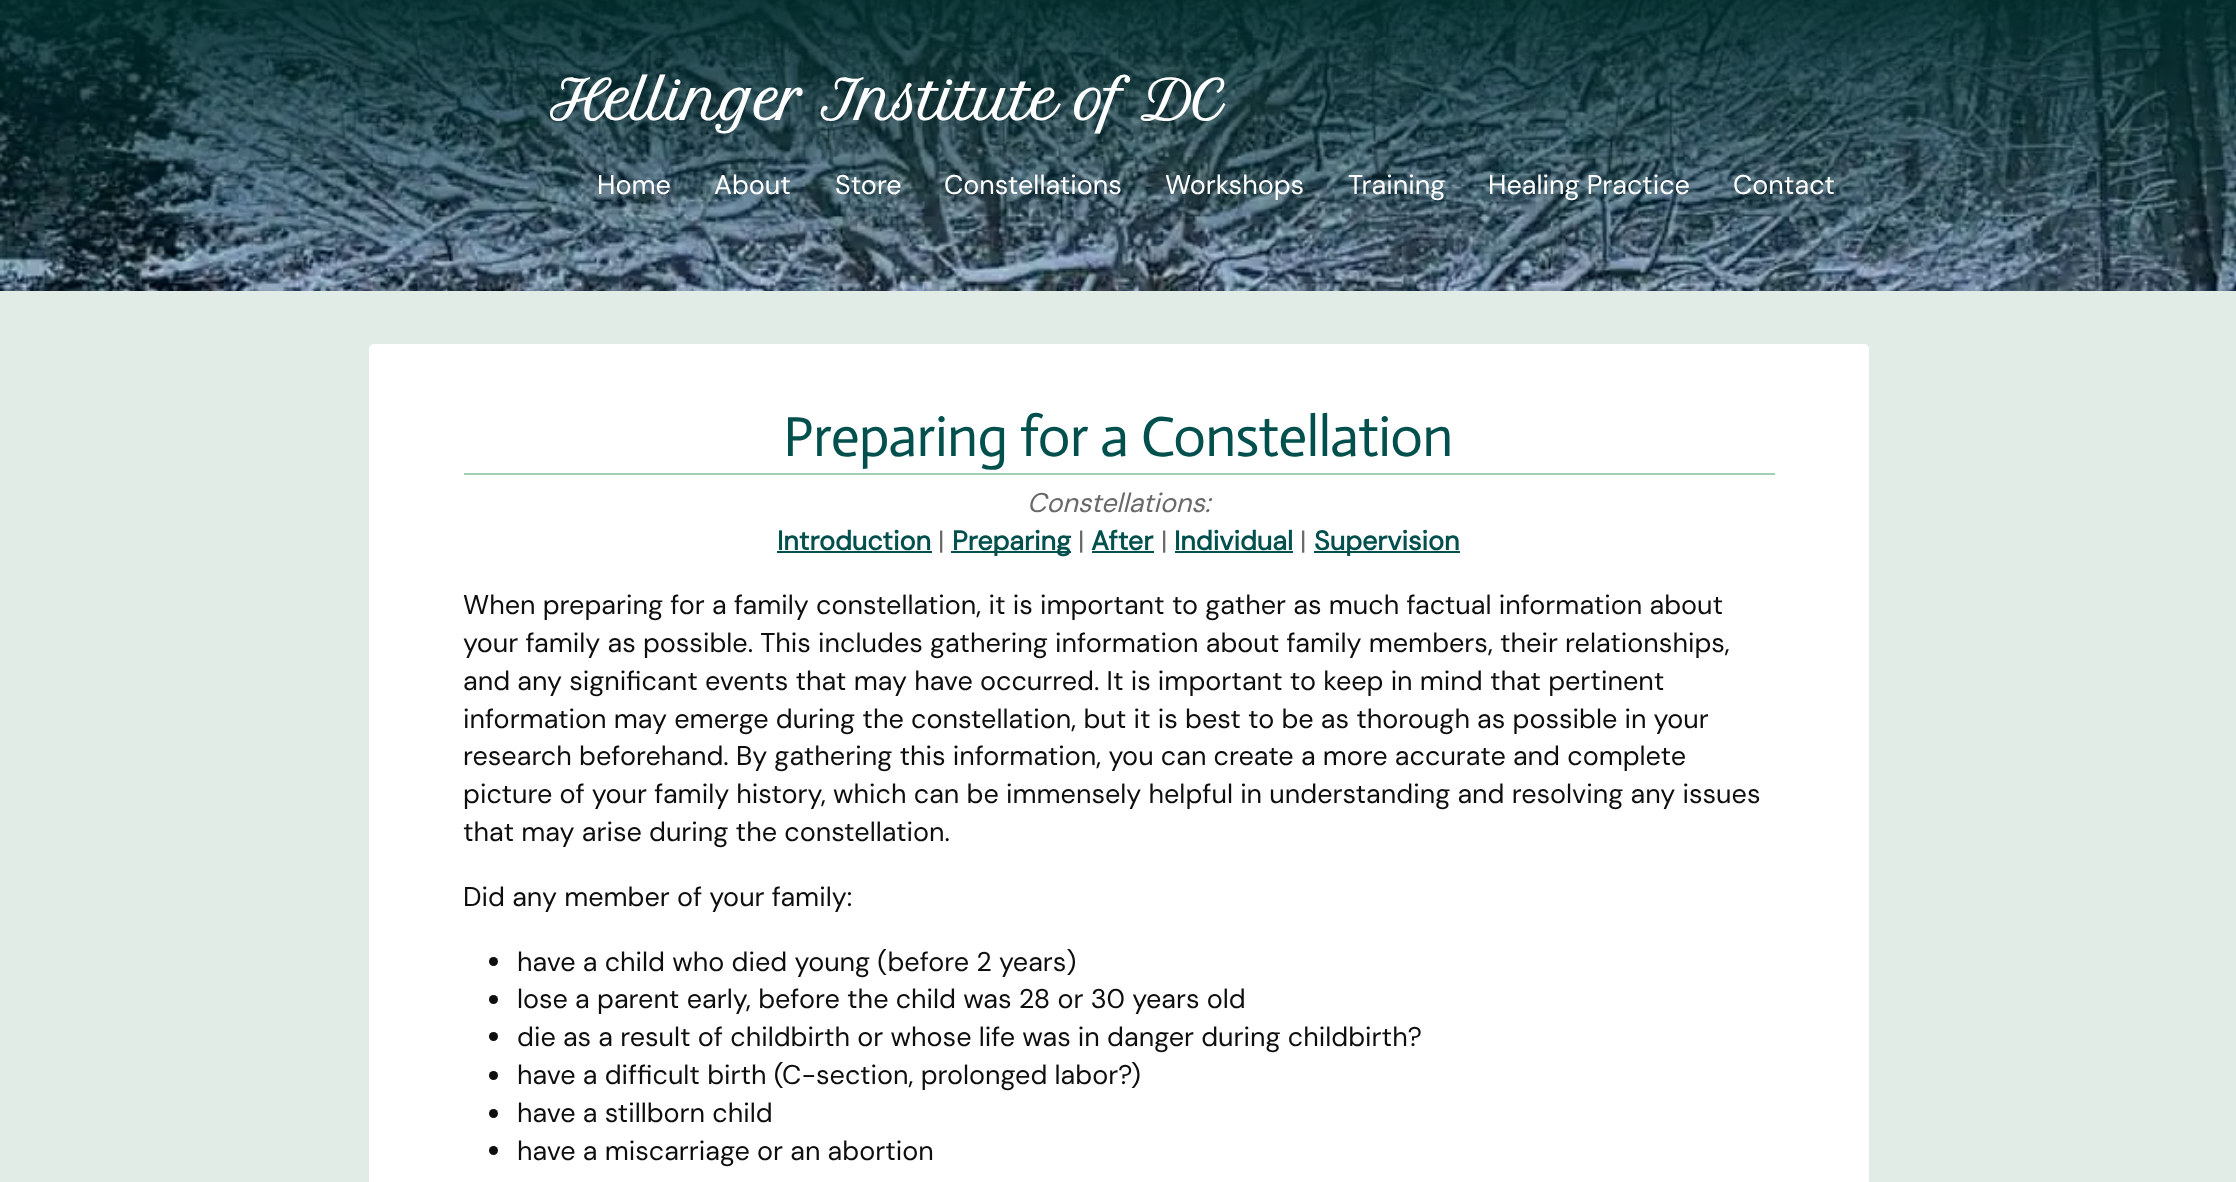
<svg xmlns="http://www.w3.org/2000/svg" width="2236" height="1182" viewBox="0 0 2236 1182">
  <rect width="100%" height="100%" fill="#e0ece5"/>
  <image x="0" y="0" width="2236" height="291" href="img1.png"/>
  <text x="550" y="120" font-family="Petit Formal Script" font-size="52.5" font-weight="bold" letter-spacing="-1.2" fill="#ffffff">Hellinger Institute of DC</text>
  <text x="597" y="194" font-family="DM Sans" font-size="27" fill="#ffffff">Home</text>
  <text x="714" y="194" font-family="DM Sans" font-size="27" fill="#ffffff">About</text>
  <text x="835" y="194" font-family="DM Sans" font-size="27" fill="#ffffff">Store</text>
  <text x="944" y="194" font-family="DM Sans" font-size="27" fill="#ffffff">Constellations</text>
  <text x="1165" y="194" font-family="DM Sans" font-size="27" fill="#ffffff">Workshops</text>
  <text x="1348" y="194" font-family="DM Sans" font-size="27" fill="#ffffff">Training</text>
  <text x="1488" y="194" font-family="DM Sans" font-size="27" fill="#ffffff">Healing Practice</text>
  <text x="1733" y="194" font-family="DM Sans" font-size="27" fill="#ffffff">Contact</text>
  <rect x="369" y="344" width="1500" height="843" rx="5" fill="#ffffff"/>
  <rect x="464" y="473" width="1311" height="2" fill="#a2d0b5"/>
  <text x="783" y="456" font-family="Actor" font-size="57" letter-spacing="-0.75" fill="#01504e">Preparing for a Constellation</text>
  <text x="1027" y="512" font-family="DM Sans" font-size="27" font-style="italic" fill="#696969">Constellations:</text>
  <text x="777" y="550" font-family="DM Sans" font-size="27" font-weight="bold" fill="#01504e">Introduction</text>
  <rect x="777" y="551" width="155" height="2" fill="#01504e"/>
  <text x="938" y="550" font-family="DM Sans" font-size="27" fill="#696969">|</text>
  <rect x="951" y="551" width="120" height="2" fill="#01504e"/>
  <text x="952" y="550" font-family="DM Sans" font-size="27" font-weight="bold" fill="#01504e">Preparing</text>
  <text x="1078" y="550" font-family="DM Sans" font-size="27" fill="#696969">|</text>
  <text x="1091" y="550" font-family="DM Sans" font-size="27" font-weight="bold" fill="#01504e">After</text>
  <rect x="1092" y="551" width="62" height="2" fill="#01504e"/>
  <text x="1161" y="550" font-family="DM Sans" font-size="27" fill="#696969">|</text>
  <text x="1174" y="550" font-family="DM Sans" font-size="27" font-weight="bold" fill="#01504e">Individual</text>
  <rect x="1175" y="551" width="118" height="2" fill="#01504e"/>
  <text x="1300" y="550" font-family="DM Sans" font-size="27" fill="#696969">|</text>
  <rect x="1314" y="551" width="146" height="2" fill="#01504e"/>
  <text x="1314" y="550" font-family="DM Sans" font-size="27" font-weight="bold" fill="#01504e">Supervision</text>
  <text x="463" y="614" font-family="DM Sans" font-size="27" fill="#0e0e0e">When preparing for a family constellation, it is important to gather as much factual information about</text>
  <text x="463" y="652" font-family="DM Sans" font-size="27" fill="#0e0e0e">your family as possible. This includes gathering information about family members, their relationships,</text>
  <text x="463" y="690" font-family="DM Sans" font-size="27" fill="#0e0e0e">and any significant events that may have occurred. It is important to keep in mind that pertinent</text>
  <text x="463" y="728" font-family="DM Sans" font-size="27" fill="#0e0e0e">information may emerge during the constellation, but it is best to be as thorough as possible in your</text>
  <text x="463" y="765" font-family="DM Sans" font-size="27" fill="#0e0e0e">research beforehand. By gathering this information, you can create a more accurate and complete</text>
  <text x="463" y="803" font-family="DM Sans" font-size="27" fill="#0e0e0e">picture of your family history, which can be immensely helpful in understanding and resolving any issues</text>
  <text x="463" y="841" font-family="DM Sans" font-size="27" fill="#0e0e0e">that may arise during the constellation.</text>
  <text x="463" y="906" font-family="DM Sans" font-size="27" fill="#0e0e0e">Did any member of your family:</text>
  <circle cx="493.5" cy="961.5" r="4.5" fill="#0e0e0e"/>
  <text x="517" y="971" font-family="DM Sans" font-size="27" fill="#0e0e0e">have a child who died young (before 2 years)</text>
  <circle cx="493.5" cy="999.5" r="4.5" fill="#0e0e0e"/>
  <text x="517" y="1008" font-family="DM Sans" font-size="27" fill="#0e0e0e">lose a parent early, before the child was 28 or 30 years old</text>
  <circle cx="493.5" cy="1036.5" r="4.5" fill="#0e0e0e"/>
  <text x="517" y="1046" font-family="DM Sans" font-size="27" fill="#0e0e0e">die as a result of childbirth or whose life was in danger during childbirth?</text>
  <circle cx="493.5" cy="1075.5" r="4.5" fill="#0e0e0e"/>
  <text x="517" y="1084" font-family="DM Sans" font-size="27" fill="#0e0e0e">have a difficult birth (C-section, prolonged labor?)</text>
  <circle cx="493.5" cy="1113.5" r="4.5" fill="#0e0e0e"/>
  <text x="517" y="1122" font-family="DM Sans" font-size="27" fill="#0e0e0e">have a stillborn child</text>
  <circle cx="493.5" cy="1150.5" r="4.5" fill="#0e0e0e"/>
  <text x="517" y="1160" font-family="DM Sans" font-size="27" fill="#0e0e0e">have a miscarriage or an abortion</text>
</svg>
